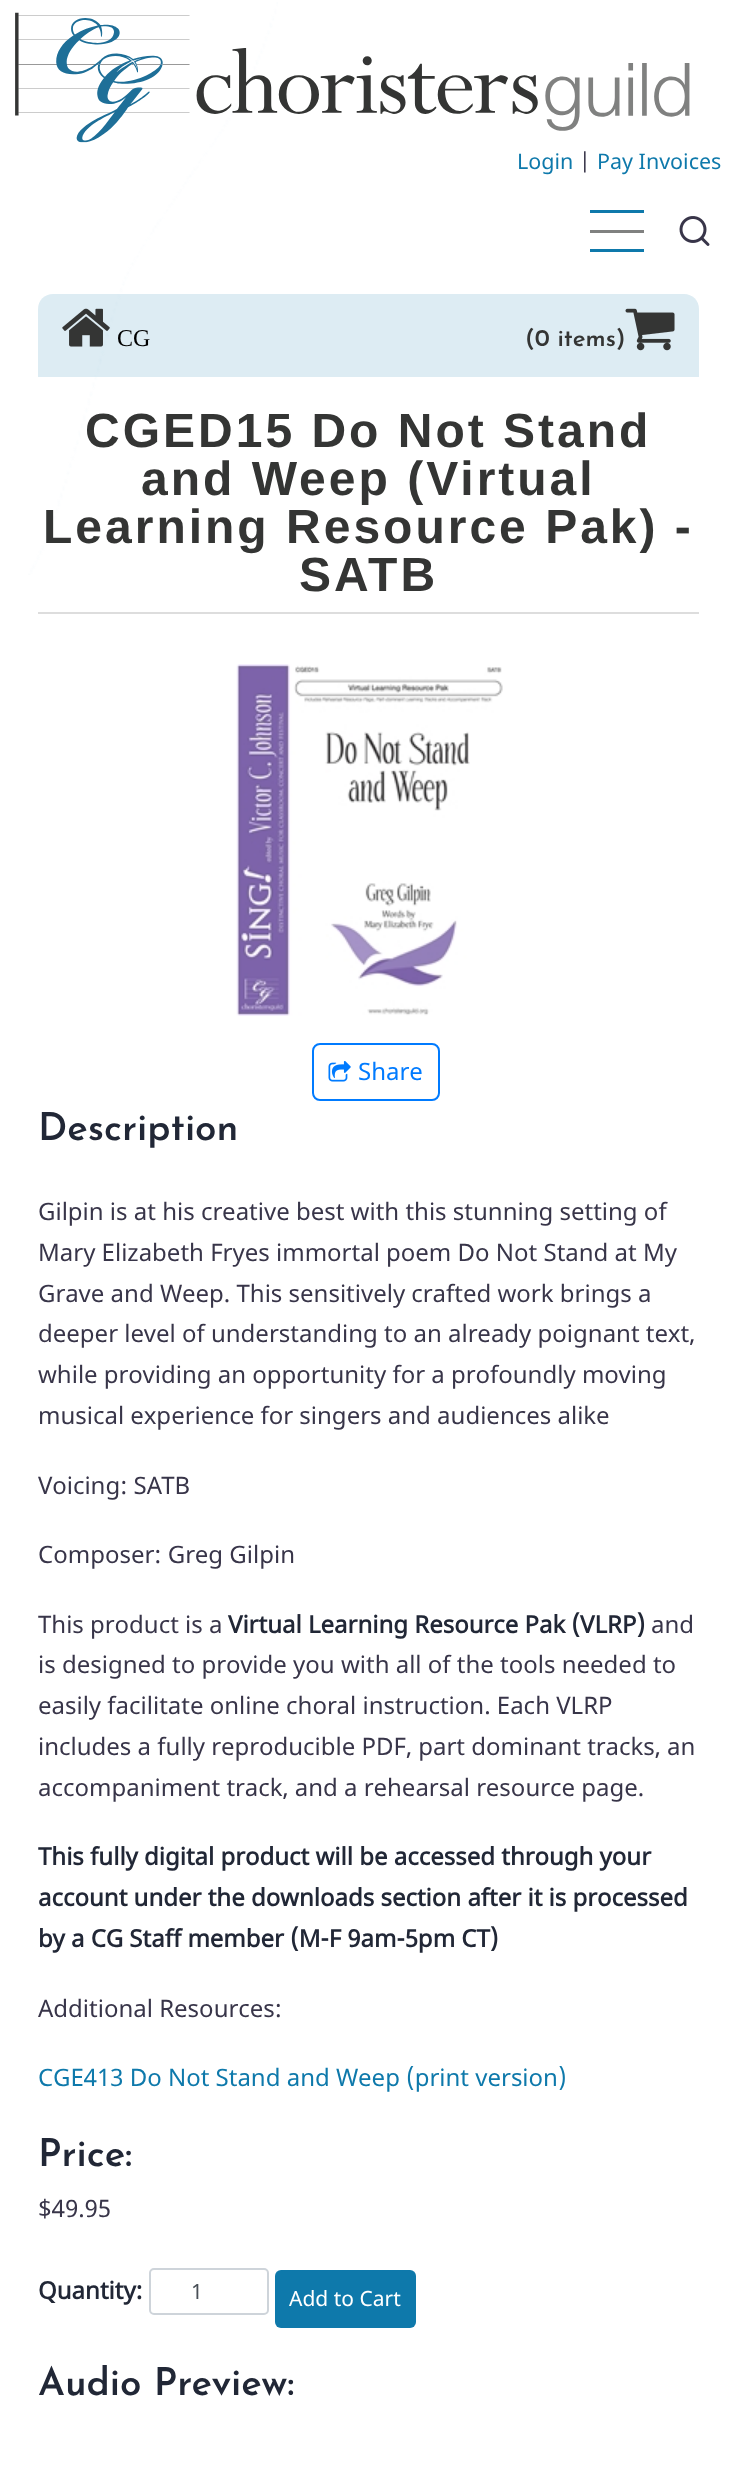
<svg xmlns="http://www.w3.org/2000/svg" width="736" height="2487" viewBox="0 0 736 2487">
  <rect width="100%" height="100%" fill="#ffffff"/>
  <image x="28" y="2" width="250" height="573" href="img1.png"/>
  <image x="15" y="12" width="675" height="131" href="img2.png"/>
  <text x="517" y="169" font-family="Noto Sans" font-size="21.5" fill="#0e79ab">Login</text>
  <text x="579" y="169" font-family="Noto Sans" font-size="21.5" fill="#383549">|</text>
  <text x="597" y="169" font-family="Noto Sans" font-size="21.5" fill="#0e79ab">Pay Invoices</text>
  <rect x="590" y="210" width="54" height="3" fill="#0e79ab"/>
  <rect x="590" y="230" width="54" height="3" fill="#808180"/>
  <rect x="590" y="249" width="54" height="3" fill="#0e79ab"/>
  <image x="679" y="216" width="31" height="30" href="img3.png"/>
  <path d="M53 294H302V377H38V309C38 300.5 44.5 294 53 294Z" fill="#0e79ab" fill-opacity="0.14"/>
  <image x="62" y="308" width="48" height="39" href="img4.png"/>
  <text x="117" y="346" font-family="Liberation Serif" font-size="24" fill="#000000">CG</text>
  <path d="M302 294H684C692.5 294 699 300.5 699 309V377H302Z" fill="#ddecf3"/>
  <text x="525" y="346" font-family="Josefin Sans" font-size="24" font-weight="100" fill="#343534">(0 items)</text>
  <image x="625" y="308" width="50" height="43" href="img5.png"/>
  <text x="85" y="447" font-family="Liberation Sans" font-size="48" font-weight="bold" letter-spacing="3" fill="#343534">CGED15 Do Not Stand</text>
  <text x="141" y="495" font-family="Liberation Sans" font-size="48" font-weight="bold" letter-spacing="3" fill="#343534">and Weep (Virtual</text>
  <text x="43" y="543" font-family="Liberation Sans" font-size="48" font-weight="bold" letter-spacing="3" fill="#343534">Learning Resource Pak) -</text>
  <text x="299" y="591" font-family="Liberation Sans" font-size="48" font-weight="bold" letter-spacing="3" fill="#343534">SATB</text>
  <rect x="38" y="612" width="661" height="2" fill="#dddddd"/>
  <image x="236" y="664" width="267" height="352" href="img6.png"/>
  <rect x="313" y="1044" width="126" height="56" rx="7" fill="none" stroke="#007bff" stroke-width="2"/>
  <image x="328" y="1061" width="23" height="21" href="img7.png"/>
  <text x="358" y="1080" font-family="Noto Sans" font-size="24" fill="#007bff">Share</text>
  <text x="38" y="1140" font-family="Josefin Sans" font-size="38.5" font-weight="100" fill="#212736">Description</text>
  <text x="38" y="1220" font-family="Noto Sans" font-size="24" fill="#383549">Gilpin is at his creative best with this stunning setting of</text>
  <text x="38" y="1261" font-family="Noto Sans" font-size="24" fill="#383549">Mary Elizabeth Fryes immortal poem Do Not Stand at My</text>
  <text x="38" y="1302" font-family="Noto Sans" font-size="24" fill="#383549">Grave and Weep. This sensitively crafted work brings a</text>
  <text x="38" y="1342" font-family="Noto Sans" font-size="24" fill="#383549">deeper level of understanding to an already poignant text,</text>
  <text x="38" y="1383" font-family="Noto Sans" font-size="24" fill="#383549">while providing an opportunity for a profoundly moving</text>
  <text x="38" y="1424" font-family="Noto Sans" font-size="24" fill="#383549">musical experience for singers and audiences alike</text>
  <text x="38" y="1494" font-family="Noto Sans" font-size="24" fill="#383549">Voicing: SATB</text>
  <text x="38" y="1563" font-family="Noto Sans" font-size="24" fill="#383549">Composer: Greg Gilpin</text>
  <text x="38" y="1633" font-family="Noto Sans" font-size="24" fill="#383549">This product is a</text>
  <text x="228" y="1633" font-family="Noto Sans" font-size="24" font-weight="bold" fill="#212736">Virtual Learning Resource Pak (VLRP)</text>
  <text x="651" y="1633" font-family="Noto Sans" font-size="24" fill="#383549">and</text>
  <text x="38" y="1673" font-family="Noto Sans" font-size="24" fill="#383549">is designed to provide you with all of the tools needed to</text>
  <text x="38" y="1714" font-family="Noto Sans" font-size="24" fill="#383549">easily facilitate online choral instruction. Each VLRP</text>
  <text x="38" y="1755" font-family="Noto Sans" font-size="24" fill="#383549">includes a fully reproducible PDF, part dominant tracks, an</text>
  <text x="38" y="1796" font-family="Noto Sans" font-size="24" fill="#383549">accompaniment track, and a rehearsal resource page.</text>
  <text x="38" y="1865" font-family="Noto Sans" font-size="24" font-weight="bold" fill="#212736">This fully digital product will be accessed through your</text>
  <text x="38" y="1906" font-family="Noto Sans" font-size="24" font-weight="bold" fill="#212736">account under the downloads section after it is processed</text>
  <text x="38" y="1947" font-family="Noto Sans" font-size="24" font-weight="bold" fill="#212736">by a CG Staff member (M-F 9am-5pm CT)</text>
  <text x="38" y="2017" font-family="Noto Sans" font-size="24" fill="#383549">Additional Resources:</text>
  <text x="38" y="2086" font-family="Noto Sans" font-size="24" fill="#0e79ab">CGE413 Do Not Stand and Weep (print version)</text>
  <text x="38" y="2166" font-family="Josefin Sans" font-size="38.5" font-weight="100" fill="#212736">Price:</text>
  <text x="38" y="2217" font-family="Noto Sans" font-size="24" fill="#383549">$49.95</text>
  <text x="38" y="2299" font-family="Noto Sans" font-size="24" font-weight="bold" fill="#212736">Quantity:</text>
  <rect x="150" y="2269" width="118" height="45" rx="4" fill="none" stroke="#ced4da" stroke-width="2"/>
  <text x="191" y="2299" font-family="Noto Sans" font-size="21" fill="#495057">1</text>
  <rect x="275" y="2270" width="141" height="58" rx="6" fill="#0e79ab"/>
  <text x="289" y="2306" font-family="Noto Sans" font-size="21" fill="#ffffff">Add to Cart</text>
  <text x="38" y="2395" font-family="Josefin Sans" font-size="38.5" font-weight="100" fill="#212736">Audio Preview:</text>
</svg>
